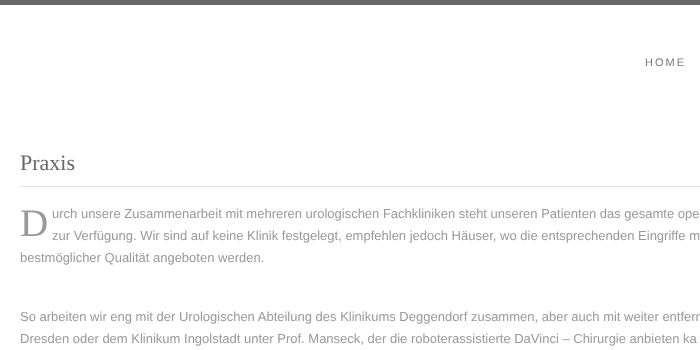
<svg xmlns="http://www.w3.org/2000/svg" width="700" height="350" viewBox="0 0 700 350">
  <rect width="100%" height="100%" fill="#ffffff"/>
  <rect x="0" y="0" width="700" height="5" fill="#686868"/>
  <text x="645" y="66" font-family="Liberation Sans" font-size="11" letter-spacing="2" fill="#777777">HOME</text>
  <text x="20" y="170" font-family="Liberation Serif" font-size="22" fill="#686868">Praxis</text>
  <rect x="20" y="186" width="680" height="1" fill="#e2e2e2"/>
  <text x="20" y="236" font-family="Liberation Serif" font-size="39" fill="#999999">D</text>
  <text x="52" y="218" font-family="Liberation Sans" font-size="13" fill="#999999">urch unsere Zusammenarbeit mit mehreren urologischen Fachkliniken steht unseren Patienten das gesamte ope</text>
  <text x="52" y="240" font-family="Liberation Sans" font-size="13" fill="#999999">zur Verfügung. Wir sind auf keine Klinik festgelegt, empfehlen jedoch Häuser, wo die entsprechenden Eingriffe m</text>
  <text x="20" y="262" font-family="Liberation Sans" font-size="13" fill="#999999">bestmöglicher Qualität angeboten werden.</text>
  <text x="20" y="321" font-family="Liberation Sans" font-size="13" fill="#999999">So arbeiten wir eng mit der Urologischen Abteilung des Klinikums Deggendorf zusammen, aber auch mit weiter entfern</text>
  <text x="20" y="343" font-family="Liberation Sans" font-size="13" fill="#999999">Dresden oder dem Klinikum Ingolstadt unter Prof. Manseck, der die roboterassistierte DaVinci – Chirurgie anbieten ka</text>
</svg>
